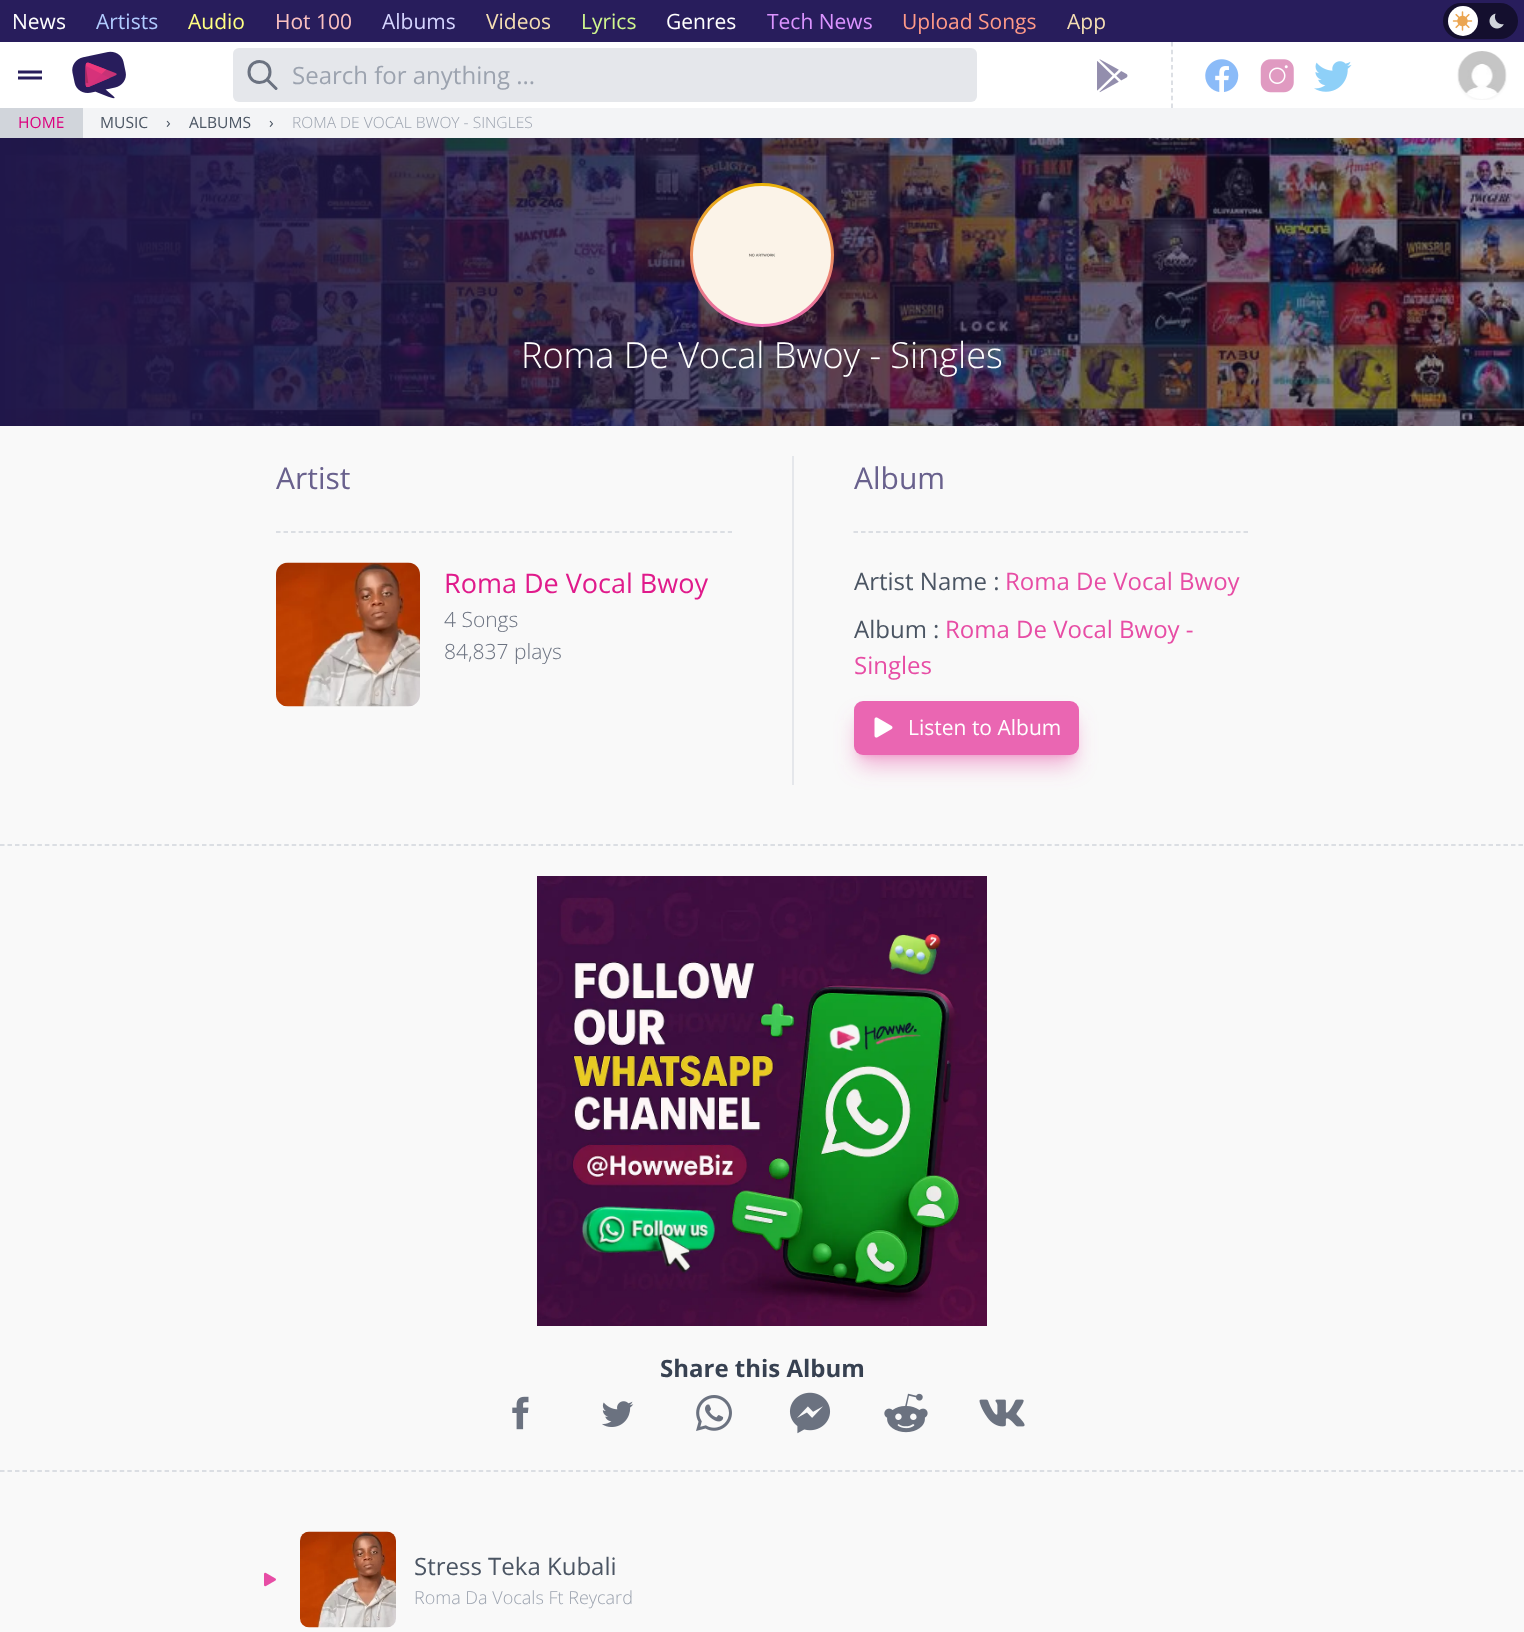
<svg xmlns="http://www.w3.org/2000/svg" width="1524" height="1632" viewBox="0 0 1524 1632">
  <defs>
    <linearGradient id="g1" gradientUnits="userSpaceOnUse" x1="762" y1="327" x2="762" y2="183"><stop offset="0" stop-color="#ea66b2"/><stop offset="1" stop-color="#eab308"/></linearGradient>
    <filter id="blur1" x="-50%" y="-200%" width="200%" height="500%"><feGaussianBlur stdDeviation="4.5"/></filter>
    <filter id="blur2" x="-50%" y="-200%" width="200%" height="500%"><feGaussianBlur stdDeviation="11"/></filter>
  </defs>
  <rect width="100%" height="100%" fill="#f9f9f9"/>
  <rect x="0" y="42" width="1524" height="66" fill="#ffffff"/>
  <rect x="0" y="0" width="1524" height="42" fill="#281d5c"/>
  <text x="12" y="29" font-family="Open Sans" font-size="21" fill="#ffffff">News</text>
  <text x="96" y="29" font-family="Open Sans" font-size="21" fill="#b1ccff">Artists</text>
  <text x="188" y="29" font-family="Open Sans" font-size="21" fill="#ffff82">Audio</text>
  <text x="275" y="29" font-family="Open Sans" font-size="21" fill="#fbc1c1">Hot 100</text>
  <text x="382" y="29" font-family="Open Sans" font-size="21" fill="#d5d5ff">Albums</text>
  <text x="486" y="29" font-family="Open Sans" font-size="21" fill="#f5deb3">Videos</text>
  <text x="581" y="29" font-family="Open Sans" font-size="21" fill="#d0f78e">Lyrics</text>
  <text x="666" y="29" font-family="Open Sans" font-size="21" fill="#ffffff">Genres</text>
  <text x="767" y="29" font-family="Open Sans" font-size="21" fill="#db93ff">Tech News</text>
  <text x="902" y="29" font-family="Open Sans" font-size="21" fill="#ff9a88">Upload Songs</text>
  <text x="1067" y="29" font-family="Open Sans" font-size="21" fill="#f5deb3">App</text>
  <rect x="1443" y="3" width="75" height="36" rx="18" fill="#140f2e"/>
  <circle cx="1463" cy="21" r="15" fill="#ffffff"/>
  <image x="1452" y="11" width="21" height="20" href="img1.png"/>
  <image x="1489" y="13" width="15" height="16" href="img2.png"/>
  <path d="M42 70.5H18V73.5H42ZM18 79.5H42V76.5H18Z" fill="#281d5c"/>
  <image x="72" y="51" width="54" height="48" href="img3.png"/>
  <rect x="233" y="48" width="744" height="54" rx="6" fill="#e5e7eb"/>
  <path d="M276 88.5L267 79.5M270 72C270 86 249 86 249 72C249 58 270 58 270 72Z" fill="none" stroke="#6b7280" stroke-width="3" stroke-linecap="round" stroke-linejoin="round"/>
  <text x="292" y="84" font-family="Open Sans" font-size="24" fill="#9ca3af">Search for anything ...</text>
  <image x="1097" y="59" width="31" height="34" href="img4.png"/>
  <path d="M1172 42V108" fill="none" stroke="#d1d5db" stroke-width="1.5" stroke-dasharray="4.5 3.18"/>
  <image x="1205" y="59" width="34" height="33" href="img5.png"/>
  <image x="1260" y="59" width="34" height="34" href="img6.png"/>
  <image x="1314" y="61" width="38" height="31" href="img7.png"/>
  <image x="1457" y="51" width="50" height="49" href="img8.png"/>
  <rect x="83" y="108" width="1441" height="30" fill="#f3f4f6"/>
  <rect x="0" y="108" width="83" height="30" fill="#d1d5db"/>
  <text x="18" y="128" font-family="Open Sans" font-size="15.6" fill="#dc007e">HOME</text>
  <text x="100" y="128" font-family="Open Sans" font-size="15.6" fill="#4b5563">MUSIC</text>
  <text x="166" y="128" font-family="Open Sans" font-size="15.6" fill="#4b5563">›</text>
  <text x="189" y="128" font-family="Open Sans" font-size="15.6" fill="#4b5563">ALBUMS</text>
  <text x="269" y="128" font-family="Open Sans" font-size="15.6" fill="#4b5563">›</text>
  <text x="292" y="128" font-family="Open Sans" font-size="15.6" font-weight="300" fill="#9ca3af">ROMA DE VOCAL BWOY - SINGLES</text>
  <image x="0" y="138" width="1524" height="288" href="img9.png"/>
  <circle cx="762" cy="255" r="72" fill="url(#g1)"/>
  <image x="693" y="186" width="138" height="138" href="img10.png"/>
  <text x="521" y="368" font-family="Open Sans" font-size="36" font-weight="300" fill="#ffffff">Roma De Vocal Bwoy - Singles</text>
  <text x="276" y="489" font-family="Open Sans" font-size="30" fill="#69618d">Artist</text>
  <path d="M276 532H732" fill="none" stroke="#d1d5db" stroke-width="1.5" stroke-dasharray="4.5 3.03"/>
  <image x="276" y="562" width="144" height="145" href="img11.png"/>
  <text x="444" y="593" font-family="Open Sans" font-size="27" fill="#e01a8b">Roma De Vocal Bwoy</text>
  <text x="444" y="627" font-family="Open Sans" font-size="21" font-weight="300" fill="#6b7280">4 Songs</text>
  <text x="444" y="659" font-family="Open Sans" font-size="21" font-weight="300" fill="#6b7280">84,837 plays</text>
  <rect x="792" y="456" width="2" height="329" fill="#e5e7eb"/>
  <text x="854" y="489" font-family="Open Sans" font-size="30" fill="#69618d">Album</text>
  <path d="M853.5 532H1248" fill="none" stroke="#d1d5db" stroke-width="1.5" stroke-dasharray="4.5 3"/>
  <text x="854" y="590" font-family="Open Sans" font-size="24" fill="#4b5563">Artist Name :</text>
  <text x="1005" y="590" font-family="Open Sans" font-size="24" fill="#e74da5">Roma De Vocal Bwoy</text>
  <text x="854" y="638" font-family="Open Sans" font-size="24" fill="#4b5563">Album :</text>
  <text x="945" y="638" font-family="Open Sans" font-size="24" fill="#e74da5">Roma De Vocal Bwoy -</text>
  <text x="854" y="674" font-family="Open Sans" font-size="24" fill="#e74da5">Singles</text>
  <rect x="860" y="713" width="213" height="42" rx="3" fill="#ea66b2" fill-opacity="0.5" filter="url(#blur1)"/>
  <rect x="858" y="720" width="216" height="45" rx="5" fill="#ea66b2" fill-opacity="0.5" filter="url(#blur2)"/>
  <rect x="854" y="701" width="225" height="54" rx="9" fill="#ea66b2"/>
  <image x="874" y="717" width="19" height="21" href="img12.png"/>
  <text x="908" y="735" font-family="Open Sans" font-size="21" fill="#ffffff">Listen to Album</text>
  <path d="M0 845H1524" fill="none" stroke="#d1d5db" stroke-width="1.5" stroke-dasharray="4.5 2.98"/>
  <image x="537" y="876" width="450" height="450" href="img13.png"/>
  <text x="660" y="1377" font-family="Open Sans" font-size="24" font-weight="bold" fill="#374151">Share this Album</text>
  <image x="512" y="1396" width="17" height="34" href="img14.png"/>
  <image x="602" y="1401" width="32" height="26" href="img15.png"/>
  <image x="696" y="1395" width="36" height="36" href="img16.png"/>
  <image x="789" y="1392" width="42" height="42" href="img17.png"/>
  <image x="884" y="1393" width="44" height="40" href="img18.png"/>
  <image x="979" y="1399" width="46" height="28" href="img19.png"/>
  <path d="M0 1471H1524" fill="none" stroke="#d1d5db" stroke-width="1.5" stroke-dasharray="4.5 2.98"/>
  <image x="264" y="1572" width="12" height="15" href="img20.png"/>
  <image x="300" y="1531" width="96" height="97" href="img21.png"/>
  <text x="414" y="1575" font-family="Open Sans" font-size="24" fill="#4b5563">Stress Teka Kubali</text>
  <text x="414" y="1604" font-family="Open Sans" font-size="18" font-weight="300" fill="#9ca3af">Roma Da Vocals Ft Reycard</text>
</svg>
